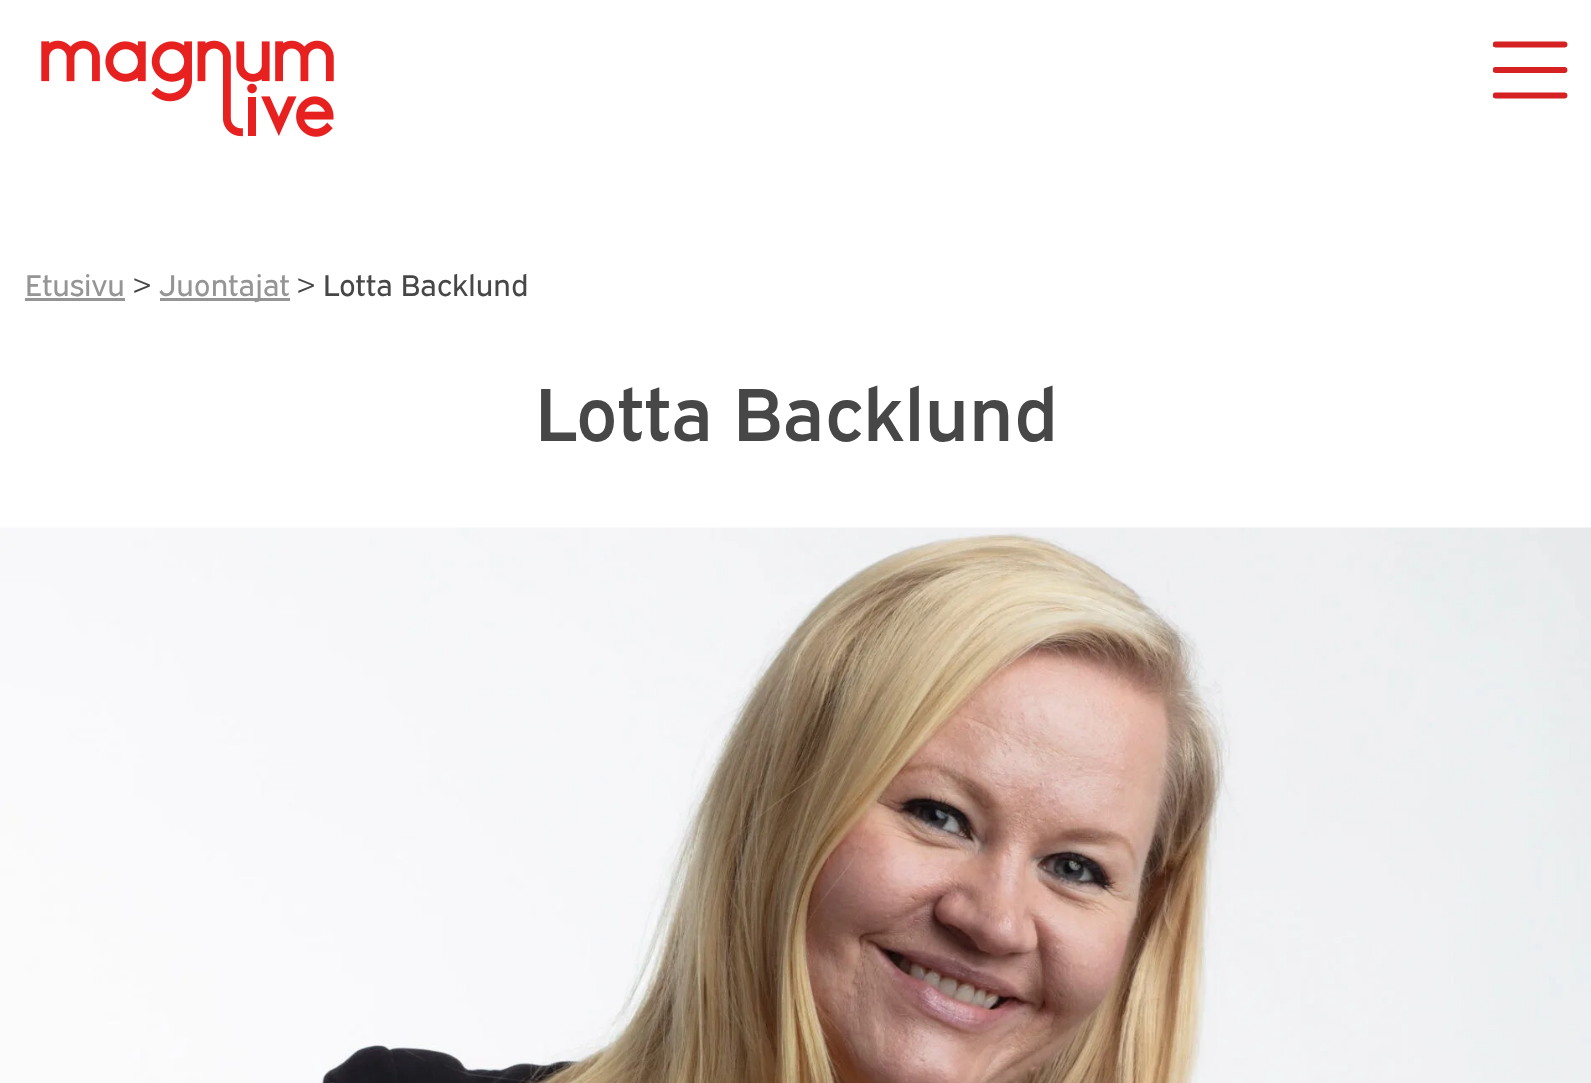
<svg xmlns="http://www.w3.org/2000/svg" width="1591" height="1083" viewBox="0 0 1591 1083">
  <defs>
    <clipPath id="clip1"><rect x="1493" y="33" width="75" height="75"/></clipPath>
  </defs>
  <rect width="100%" height="100%" fill="#ffffff"/>
  <image x="41" y="40" width="293" height="97" href="img1.png"/>
  <g clip-path="url(#clip1)">
    <path d="M1495.5 44.5H1564.5" fill="none" stroke="#d52122" stroke-width="5.9" stroke-linecap="round"/>
    <path d="M1495.5 70H1564.5" fill="none" stroke="#d52122" stroke-width="5.9" stroke-linecap="round"/>
    <path d="M1495.5 95.5H1564.5" fill="none" stroke="#d52122" stroke-width="5.9" stroke-linecap="round"/>
  </g>
  <text x="25" y="296" font-family="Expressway" font-size="30" fill="#959595">Etusivu</text>
  <rect x="25" y="298" width="100" height="3" fill="#959595"/>
  <text x="133" y="296" font-family="Expressway" font-size="30" fill="#474747">&gt;</text>
  <rect x="160" y="298" width="130" height="3" fill="#959595"/>
  <text x="159" y="296" font-family="Expressway" font-size="30" fill="#959595">Juontajat</text>
  <text x="297" y="296" font-family="Expressway" font-size="30" fill="#474747">&gt; Lotta Backlund</text>
  <text x="535" y="441" font-family="'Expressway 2'" font-size="75" fill="#474747">Lotta Backlund</text>
  <image x="0" y="527" width="1591" height="556" href="img2.png"/>
</svg>
